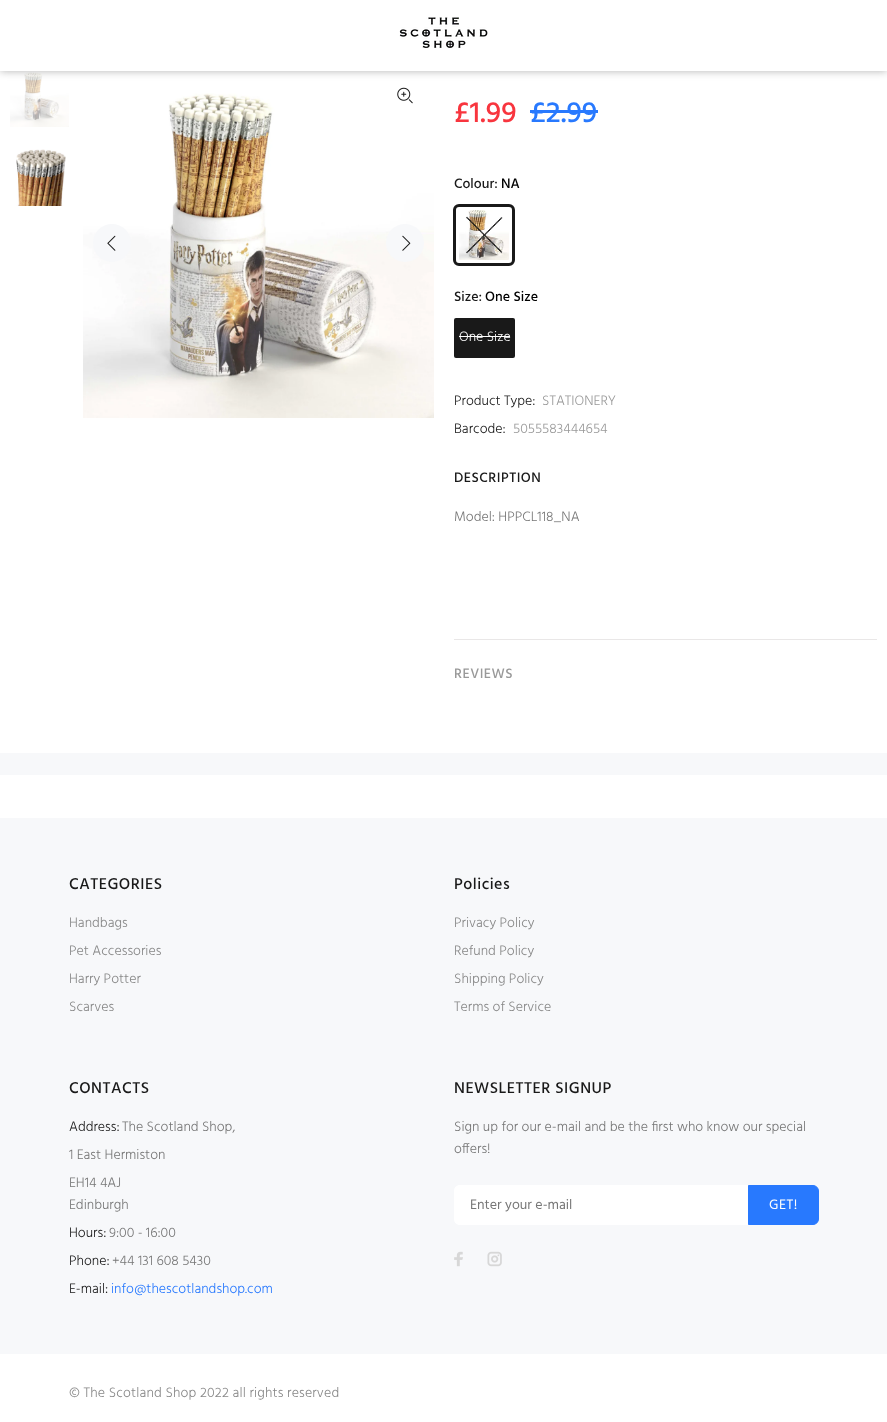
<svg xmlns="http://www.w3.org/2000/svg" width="887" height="1422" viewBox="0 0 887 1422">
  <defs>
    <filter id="blur1" x="-50%" y="-200%" width="200%" height="500%"><feGaussianBlur stdDeviation="4"/></filter>
  </defs>
  <rect width="100%" height="100%" fill="#ffffff"/>
  <image x="10" y="72" width="59" height="55" href="img2.png"/>
  <rect x="0" y="0" width="887" height="71" fill="#000000" fill-opacity="0.3" filter="url(#blur1)"/>
  <rect x="0" y="0" width="887" height="71" fill="#ffffff"/>
  <image x="399" y="17" width="89" height="31" href="img1.png"/>
  <image x="16" y="149" width="50" height="57" href="img3.png"/>
  <image x="83" y="93" width="351" height="325" href="img5.png"/>
  <image x="397" y="87" width="16" height="17" href="img4.png"/>
  <circle cx="112" cy="243" r="19" fill="#f7f8fa"/>
  <image x="107" y="235" width="9" height="16" href="img6.png"/>
  <circle cx="405" cy="243" r="19" fill="#f7f8fa"/>
  <image x="402" y="235" width="9" height="16" href="img7.png"/>
  <text x="454" y="122" font-family="Hind" font-size="30" font-weight="500" fill="#f8353e">£1.99</text>
  <text x="530" y="122" font-family="Hind" font-size="30" font-weight="500" fill="#2879fe">£2.99</text>
  <rect x="530" y="110" width="68" height="3" fill="#2879fe"/>
  <text x="454" y="188" font-family="Hind" font-size="14" font-weight="500" fill="#191919">Colour:</text>
  <text x="501" y="188" font-family="Hind" font-size="14" font-weight="500" fill="#000000">NA</text>
  <image x="459" y="210" width="50" height="50" href="img8.png"/>
  <rect x="456.5" y="207.5" width="55" height="55" rx="3.5" fill="none" stroke="#ffffff" stroke-width="5"/>
  <rect x="454.5" y="205.5" width="59" height="59" rx="4.5" fill="none" stroke="#191919" stroke-width="3"/>
  <image x="466" y="216" width="37" height="38" href="img9.png"/>
  <text x="454" y="301" font-family="Hind" font-size="14" font-weight="500" fill="#191919">Size:</text>
  <text x="485" y="301" font-family="Hind" font-size="14" font-weight="500" fill="#000000">One Size</text>
  <rect x="454" y="318" width="61" height="40" rx="2" fill="#191919"/>
  <text x="459" y="341" font-family="Hind" font-size="14" font-weight="300" fill="#ffffff">One Size</text>
  <rect x="459" y="336" width="51" height="1" fill="#ffffff"/>
  <text x="454" y="405" font-family="Hind" font-size="14" font-weight="300" fill="#191919">Product Type:</text>
  <text x="542" y="405" font-family="Hind" font-size="14" font-weight="300" fill="#999999">STATIONERY</text>
  <text x="454" y="433" font-family="Hind" font-size="14" font-weight="300" fill="#191919">Barcode:</text>
  <text x="513" y="433" font-family="Hind" font-size="14" font-weight="300" fill="#999999">5055583444654</text>
  <rect x="454" y="639" width="423" height="1" fill="#e9e7e7"/>
  <text x="454" y="482" font-family="Hind" font-size="14" font-weight="500" letter-spacing="0.5" fill="#191919">DESCRIPTION</text>
  <text x="454" y="521" font-family="Hind" font-size="14" font-weight="300" fill="#777777">Model: HPPCL118_NA</text>
  <text x="454" y="678" font-family="Hind" font-size="14" font-weight="500" letter-spacing="0.5" fill="#999999">REVIEWS</text>
  <rect x="0" y="753" width="887" height="22" fill="#f7f8fa"/>
  <rect x="0" y="818" width="887" height="536" fill="#f7f8fa"/>
  <text x="69" y="889" font-family="Hind" font-size="16" font-weight="500" letter-spacing="0.5" fill="#191919">CATEGORIES</text>
  <text x="69" y="927" font-family="Hind" font-size="14" font-weight="300" fill="#888888">Handbags</text>
  <text x="69" y="955" font-family="Hind" font-size="14" font-weight="300" fill="#888888">Pet Accessories</text>
  <text x="69" y="983" font-family="Hind" font-size="14" font-weight="300" fill="#888888">Harry Potter</text>
  <text x="69" y="1011" font-family="Hind" font-size="14" font-weight="300" fill="#888888">Scarves</text>
  <text x="454" y="889" font-family="Hind" font-size="16" font-weight="500" letter-spacing="0.5" fill="#191919">Policies</text>
  <text x="454" y="927" font-family="Hind" font-size="14" font-weight="300" fill="#888888">Privacy Policy</text>
  <text x="454" y="955" font-family="Hind" font-size="14" font-weight="300" fill="#888888">Refund Policy</text>
  <text x="454" y="983" font-family="Hind" font-size="14" font-weight="300" fill="#888888">Shipping Policy</text>
  <text x="454" y="1011" font-family="Hind" font-size="14" font-weight="300" fill="#888888">Terms of Service</text>
  <text x="69" y="1093" font-family="Hind" font-size="16" font-weight="500" letter-spacing="0.5" fill="#191919">CONTACTS</text>
  <text x="69" y="1131" font-family="Hind" font-size="14" font-weight="300" fill="#191919">Address:</text>
  <text x="122" y="1131" font-family="Hind" font-size="14" font-weight="300" fill="#777777">The Scotland Shop,</text>
  <text x="69" y="1159" font-family="Hind" font-size="14" font-weight="300" fill="#777777">1 East Hermiston</text>
  <text x="69" y="1187" font-family="Hind" font-size="14" font-weight="300" fill="#777777">EH14 4AJ</text>
  <text x="69" y="1209" font-family="Hind" font-size="14" font-weight="300" fill="#777777">Edinburgh</text>
  <text x="69" y="1237" font-family="Hind" font-size="14" font-weight="300" fill="#191919">Hours:</text>
  <text x="109" y="1237" font-family="Hind" font-size="14" font-weight="300" fill="#777777">9:00 - 16:00</text>
  <text x="69" y="1265" font-family="Hind" font-size="14" font-weight="300" fill="#191919">Phone:</text>
  <text x="112" y="1265" font-family="Hind" font-size="14" font-weight="300" fill="#777777">+44 131 608 5430</text>
  <text x="69" y="1293" font-family="Hind" font-size="14" font-weight="300" fill="#191919">E-mail:</text>
  <text x="111" y="1293" font-family="Hind" font-size="14" font-weight="300" fill="#2879fe">info@thescotlandshop.com</text>
  <text x="454" y="1093" font-family="Hind" font-size="16" font-weight="500" letter-spacing="0.5" fill="#191919">NEWSLETTER SIGNUP</text>
  <text x="454" y="1131" font-family="Hind" font-size="14" font-weight="300" fill="#777777">Sign up for our e-mail and be the first who know our special</text>
  <text x="454" y="1153" font-family="Hind" font-size="14" font-weight="300" fill="#777777">offers!</text>
  <path d="M460 1185H748V1225H460C456.5 1225 454 1222.5 454 1219V1191C454 1187.5 456.5 1185 460 1185Z" fill="#ffffff"/>
  <text x="470" y="1209" font-family="Hind" font-size="14" fill="#777777">Enter your e-mail</text>
  <path d="M748.5 1185.5H813C816 1185.5 818.5 1188 818.5 1191V1219C818.5 1222 816 1224.5 813 1224.5H748.5Z" fill="#2879fe" stroke="#2879fe"/>
  <text x="769" y="1209" font-family="Hind" font-size="14" letter-spacing="0.5" fill="#ffffff">GET!</text>
  <image x="454" y="1251" width="9" height="16" href="img10.png"/>
  <image x="487" y="1251" width="15" height="16" href="img11.png"/>
  <text x="69" y="1397" font-family="Hind" font-size="14" font-weight="300" letter-spacing="0.15" fill="#888888">© The Scotland Shop 2022 all rights reserved</text>
</svg>
